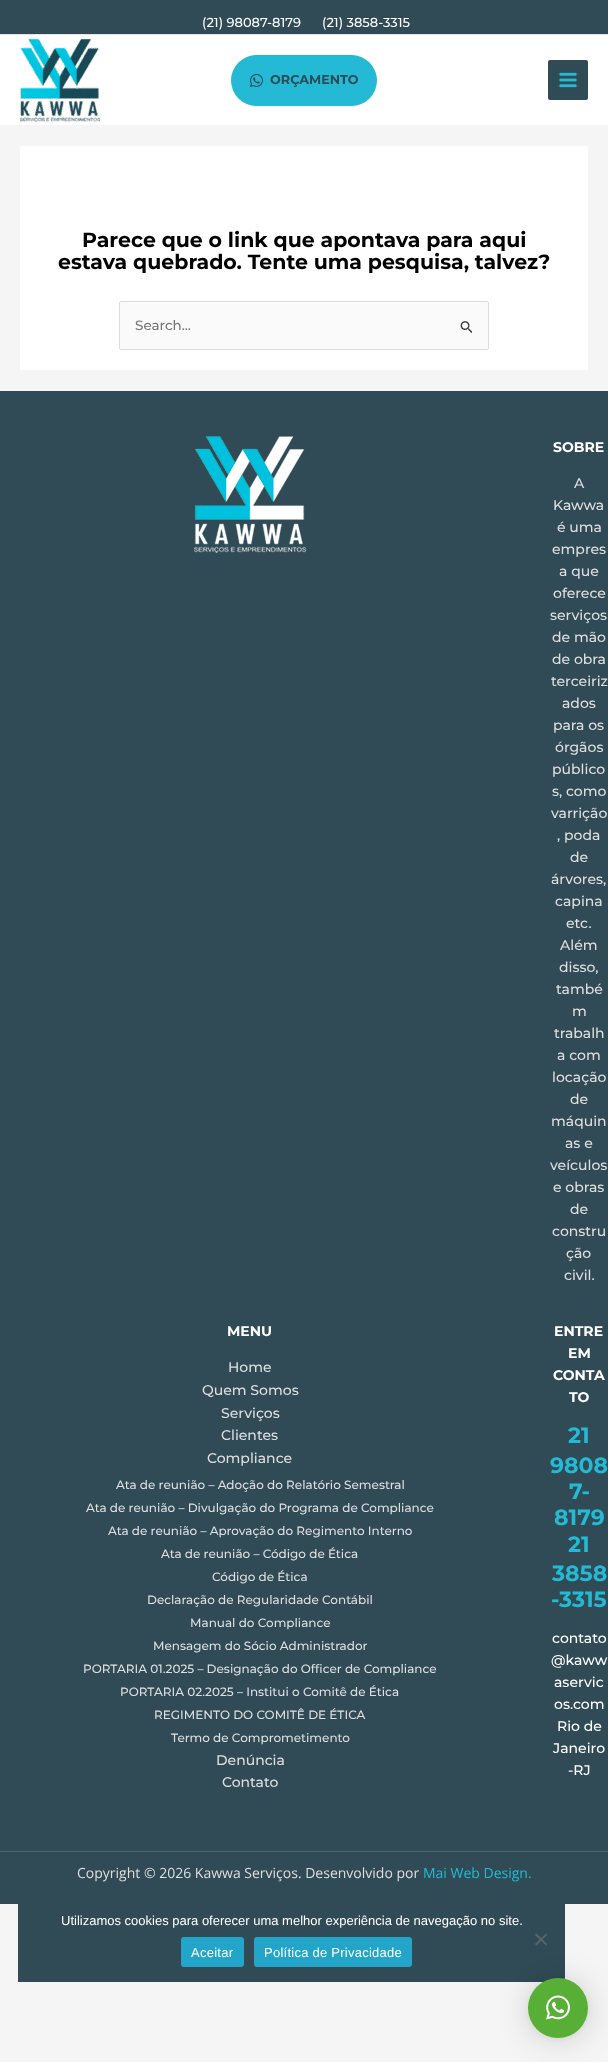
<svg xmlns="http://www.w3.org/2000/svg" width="608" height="2062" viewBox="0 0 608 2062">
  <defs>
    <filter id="blur1" x="-50%" y="-200%" width="200%" height="500%"><feGaussianBlur stdDeviation="16"/></filter>
    <filter id="blur2" x="-50%" y="-200%" width="200%" height="500%"><feGaussianBlur stdDeviation="3"/></filter>
  </defs>
  <rect width="100%" height="100%" fill="#f5f5f5"/>
  <rect x="0" y="0" width="608" height="34" fill="#304b56"/>
  <rect x="0" y="34" width="608" height="1" fill="#e5e5e5"/>
  <text x="202" y="27" font-family="Montserrat" font-size="13" font-weight="500" fill="#ffffff">(21) 98087-8179</text>
  <text x="322" y="27" font-family="Montserrat" font-size="13" font-weight="500" fill="#ffffff">(21) 3858-3315</text>
  <rect x="0" y="35" width="608" height="90" fill="#ffffff"/>
  <image x="20" y="39" width="80" height="83" href="img1.png"/>
  <rect x="231" y="55" width="146" height="51" rx="25.5" fill="#24bad5"/>
  <image x="250" y="73" width="14" height="14" href="img2.png"/>
  <text x="270" y="84" font-family="Montserrat" font-size="12.75" font-weight="bold" fill="#304b56">ORÇAMENTO</text>
  <rect x="548" y="60" width="40" height="40" rx="2" fill="#304b56"/>
  <image x="559" y="72" width="18" height="16" href="img3.png"/>
  <rect x="20" y="146" width="568" height="224" fill="#ffffff"/>
  <text x="82" y="247" font-family="Montserrat" font-size="20.5" font-weight="bold" fill="#010101">Parece que o link que apontava para aqui</text>
  <text x="58" y="269" font-family="Montserrat" font-size="20.5" font-weight="bold" fill="#010101">estava quebrado. Tente uma pesquisa, talvez?</text>
  <rect x="119.5" y="301.5" width="369" height="48" rx="1.5" fill="#fafafa" stroke="#dddddd"/>
  <text x="135" y="330" font-family="Montserrat" font-size="13.5" font-weight="500" fill="#757575">Search...</text>
  <image x="460" y="321" width="12" height="12" href="img4.png"/>
  <rect x="0" y="391" width="608" height="1460" fill="#304b56"/>
  <image x="194" y="436" width="112" height="117" href="img5.png"/>
  <text x="553" y="452" font-family="Montserrat" font-size="14" font-weight="bold" fill="#ffffff">SOBRE</text>
  <text x="574" y="488" font-family="Montserrat" font-size="14" font-weight="500" fill="#dfdfdf">A</text>
  <text x="553" y="510" font-family="Montserrat" font-size="14" font-weight="500" fill="#dfdfdf">Kawwa</text>
  <text x="557" y="532" font-family="Montserrat" font-size="14" font-weight="500" fill="#dfdfdf">é uma</text>
  <text x="552" y="554" font-family="Montserrat" font-size="14" font-weight="500" fill="#dfdfdf">empres</text>
  <text x="559" y="576" font-family="Montserrat" font-size="14" font-weight="500" fill="#dfdfdf">a que</text>
  <text x="553" y="598" font-family="Montserrat" font-size="14" font-weight="500" fill="#dfdfdf">oferece</text>
  <text x="550" y="620" font-family="Montserrat" font-size="14" font-weight="500" fill="#dfdfdf">serviços</text>
  <text x="552" y="642" font-family="Montserrat" font-size="14" font-weight="500" fill="#dfdfdf">de mão</text>
  <text x="552" y="664" font-family="Montserrat" font-size="14" font-weight="500" fill="#dfdfdf">de obra</text>
  <text x="551" y="686" font-family="Montserrat" font-size="14" font-weight="500" fill="#dfdfdf">terceiriz</text>
  <text x="562" y="708" font-family="Montserrat" font-size="14" font-weight="500" fill="#dfdfdf">ados</text>
  <text x="553" y="730" font-family="Montserrat" font-size="14" font-weight="500" fill="#dfdfdf">para os</text>
  <text x="555" y="752" font-family="Montserrat" font-size="14" font-weight="500" fill="#dfdfdf">órgãos</text>
  <text x="552" y="774" font-family="Montserrat" font-size="14" font-weight="500" fill="#dfdfdf">público</text>
  <text x="552" y="796" font-family="Montserrat" font-size="14" font-weight="500" fill="#dfdfdf">s, como</text>
  <text x="551" y="818" font-family="Montserrat" font-size="14" font-weight="500" fill="#dfdfdf">varrição</text>
  <text x="557" y="840" font-family="Montserrat" font-size="14" font-weight="500" fill="#dfdfdf">, poda</text>
  <text x="570" y="862" font-family="Montserrat" font-size="14" font-weight="500" fill="#dfdfdf">de</text>
  <text x="551" y="884" font-family="Montserrat" font-size="14" font-weight="500" fill="#dfdfdf">árvores,</text>
  <text x="555" y="906" font-family="Montserrat" font-size="14" font-weight="500" fill="#dfdfdf">capina</text>
  <text x="566" y="928" font-family="Montserrat" font-size="14" font-weight="500" fill="#dfdfdf">etc.</text>
  <text x="560" y="950" font-family="Montserrat" font-size="14" font-weight="500" fill="#dfdfdf">Além</text>
  <text x="559" y="972" font-family="Montserrat" font-size="14" font-weight="500" fill="#dfdfdf">disso,</text>
  <text x="556" y="994" font-family="Montserrat" font-size="14" font-weight="500" fill="#dfdfdf">també</text>
  <text x="572" y="1016" font-family="Montserrat" font-size="14" font-weight="500" fill="#dfdfdf">m</text>
  <text x="554" y="1038" font-family="Montserrat" font-size="14" font-weight="500" fill="#dfdfdf">trabalh</text>
  <text x="557" y="1060" font-family="Montserrat" font-size="14" font-weight="500" fill="#dfdfdf">a com</text>
  <text x="552" y="1082" font-family="Montserrat" font-size="14" font-weight="500" fill="#dfdfdf">locação</text>
  <text x="570" y="1104" font-family="Montserrat" font-size="14" font-weight="500" fill="#dfdfdf">de</text>
  <text x="551" y="1126" font-family="Montserrat" font-size="14" font-weight="500" fill="#dfdfdf">máquin</text>
  <text x="565" y="1148" font-family="Montserrat" font-size="14" font-weight="500" fill="#dfdfdf">as e</text>
  <text x="550" y="1170" font-family="Montserrat" font-size="14" font-weight="500" fill="#dfdfdf">veículos</text>
  <text x="553" y="1192" font-family="Montserrat" font-size="14" font-weight="500" fill="#dfdfdf">e obras</text>
  <text x="570" y="1214" font-family="Montserrat" font-size="14" font-weight="500" fill="#dfdfdf">de</text>
  <text x="552" y="1236" font-family="Montserrat" font-size="14" font-weight="500" fill="#dfdfdf">constru</text>
  <text x="566" y="1258" font-family="Montserrat" font-size="14" font-weight="500" fill="#dfdfdf">ção</text>
  <text x="564" y="1280" font-family="Montserrat" font-size="14" font-weight="500" fill="#dfdfdf">civil.</text>
  <text x="227" y="1336" font-family="Montserrat" font-size="14" font-weight="bold" fill="#ffffff">MENU</text>
  <text x="228" y="1372" font-family="Montserrat" font-size="14" font-weight="500" fill="#dfdfdf">Home</text>
  <text x="202" y="1395" font-family="Montserrat" font-size="14" font-weight="500" fill="#dfdfdf">Quem Somos</text>
  <text x="221" y="1418" font-family="Montserrat" font-size="14" font-weight="500" fill="#dfdfdf">Serviços</text>
  <text x="221" y="1440" font-family="Montserrat" font-size="14" font-weight="500" fill="#dfdfdf">Clientes</text>
  <text x="207" y="1463" font-family="Montserrat" font-size="14" font-weight="500" fill="#dfdfdf">Compliance</text>
  <text x="116" y="1489" font-family="Montserrat" font-size="12" font-weight="500" fill="#dfdfdf">Ata de reunião – Adoção do Relatório Semestral</text>
  <text x="86" y="1512" font-family="Montserrat" font-size="12" font-weight="500" fill="#dfdfdf">Ata de reunião – Divulgação do Programa de Compliance</text>
  <text x="108" y="1535" font-family="Montserrat" font-size="12" font-weight="500" fill="#dfdfdf">Ata de reunião – Aprovação do Regimento Interno</text>
  <text x="161" y="1558" font-family="Montserrat" font-size="12" font-weight="500" fill="#dfdfdf">Ata de reunião – Código de Ética</text>
  <text x="212" y="1581" font-family="Montserrat" font-size="12" font-weight="500" fill="#dfdfdf">Código de Ética</text>
  <text x="147" y="1604" font-family="Montserrat" font-size="12" font-weight="500" fill="#dfdfdf">Declaração de Regularidade Contábil</text>
  <text x="190" y="1627" font-family="Montserrat" font-size="12" font-weight="500" fill="#dfdfdf">Manual do Compliance</text>
  <text x="153" y="1650" font-family="Montserrat" font-size="12" font-weight="500" fill="#dfdfdf">Mensagem do Sócio Administrador</text>
  <text x="83" y="1673" font-family="Montserrat" font-size="12" font-weight="500" fill="#dfdfdf">PORTARIA 01.2025 – Designação do Officer de Compliance</text>
  <text x="120" y="1696" font-family="Montserrat" font-size="12" font-weight="500" fill="#dfdfdf">PORTARIA 02.2025 – Institui o Comitê de Ética</text>
  <text x="154" y="1719" font-family="Montserrat" font-size="12" font-weight="500" fill="#dfdfdf">REGIMENTO DO COMITÊ DE ÉTICA</text>
  <text x="171" y="1742" font-family="Montserrat" font-size="12" font-weight="500" fill="#dfdfdf">Termo de Comprometimento</text>
  <text x="216" y="1765" font-family="Montserrat" font-size="14" font-weight="500" fill="#dfdfdf">Denúncia</text>
  <text x="222" y="1787" font-family="Montserrat" font-size="14" font-weight="500" fill="#dfdfdf">Contato</text>
  <text x="554" y="1336" font-family="Montserrat" font-size="14" font-weight="bold" fill="#ffffff">ENTRE</text>
  <text x="568" y="1358" font-family="Montserrat" font-size="14" font-weight="bold" fill="#ffffff">EM</text>
  <text x="553" y="1380" font-family="Montserrat" font-size="14" font-weight="bold" fill="#ffffff">CONTA</text>
  <text x="569" y="1402" font-family="Montserrat" font-size="14" font-weight="bold" fill="#ffffff">TO</text>
  <text x="568" y="1443" font-family="Montserrat" font-size="22" font-weight="bold" fill="#24bad5">21</text>
  <text x="550" y="1473" font-family="Montserrat" font-size="22" font-weight="bold" fill="#24bad5">9808</text>
  <text x="569" y="1499" font-family="Montserrat" font-size="22" font-weight="bold" fill="#24bad5">7-</text>
  <text x="554" y="1525" font-family="Montserrat" font-size="22" font-weight="bold" fill="#24bad5">8179</text>
  <text x="568" y="1552" font-family="Montserrat" font-size="22" font-weight="bold" fill="#24bad5">21</text>
  <text x="552" y="1581" font-family="Montserrat" font-size="22" font-weight="bold" fill="#24bad5">3858</text>
  <text x="551" y="1607" font-family="Montserrat" font-size="22" font-weight="bold" fill="#24bad5">-3315</text>
  <text x="552" y="1643" font-family="Montserrat" font-size="14" font-weight="500" fill="#ffffff">contato</text>
  <text x="551" y="1665" font-family="Montserrat" font-size="14" font-weight="500" fill="#ffffff">@kaww</text>
  <text x="554" y="1687" font-family="Montserrat" font-size="14" font-weight="500" fill="#ffffff">aservic</text>
  <text x="554" y="1709" font-family="Montserrat" font-size="14" font-weight="500" fill="#ffffff">os.com</text>
  <text x="557" y="1731" font-family="Montserrat" font-size="14" font-weight="500" fill="#ffffff">Rio de</text>
  <text x="553" y="1753" font-family="Montserrat" font-size="14" font-weight="500" fill="#ffffff">Janeiro</text>
  <text x="568" y="1775" font-family="Montserrat" font-size="14" font-weight="500" fill="#ffffff">-RJ</text>
  <rect x="0" y="1852" width="608" height="52" fill="#304b56"/>
  <rect x="0" y="1851" width="608" height="1" fill="#4d646e"/>
  <text x="77" y="1878" font-family="Open Sans" font-size="14" fill="#dfdfdf">Copyright © 2026 Kawwa Serviços. Desenvolvido por</text>
  <text x="423" y="1878" font-family="Open Sans" font-size="14" fill="#24bad5">Mai Web Design.</text>
  <rect x="18" y="1904" width="547" height="78" fill="#304b56"/>
  <text x="61" y="1925" font-family="Liberation Sans" font-size="13" fill="#ffffff">Utilizamos cookies para oferecer uma melhor experiência de navegação no site.</text>
  <path d="M546 1933.5L547 1935L536.5 1945.5L535 1944Z" fill="#58666b"/>
  <path d="M535 1935L536.5 1933.5L547 1944L546 1945.5Z" fill="#58666b"/>
  <rect x="181" y="1937" width="63" height="30" rx="3" fill="#22a5c9"/>
  <text x="191" y="1957" font-family="Liberation Sans" font-size="13" letter-spacing="0.25" fill="#ffffff">Aceitar</text>
  <rect x="254" y="1937" width="158" height="30" rx="3" fill="#22a5c9"/>
  <text x="264" y="1957" font-family="Liberation Sans" font-size="13" letter-spacing="0.25" fill="#ffffff">Política de Privacidade</text>
  <rect x="528" y="1980" width="60" height="60" rx="30" fill="#000000" fill-opacity="0.16" filter="url(#blur1)"/>
  <rect x="528" y="1979" width="60" height="60" rx="30" fill="#000000" fill-opacity="0.06" filter="url(#blur2)"/>
  <circle cx="558" cy="2008" r="30" fill="#58af36"/>
  <image x="546" y="1995" width="24" height="25" href="img6.png"/>
</svg>
